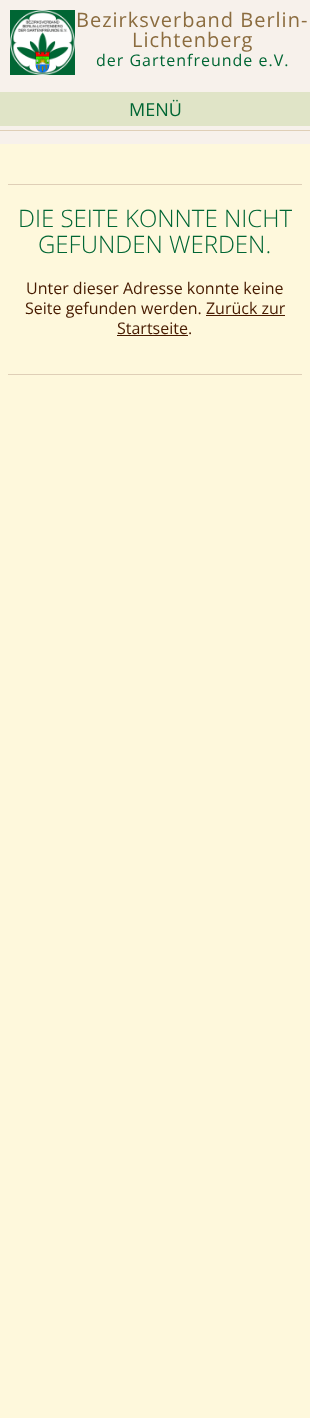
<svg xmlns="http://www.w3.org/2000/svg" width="310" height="1418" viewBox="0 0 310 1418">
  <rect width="100%" height="100%" fill="#fef8dc"/>
  <rect x="0" y="0" width="310" height="92" fill="#f7f1eb"/>
  <image x="10" y="10" width="65" height="65" href="img1.png"/>
  <text x="76" y="27" font-family="Open Sans" font-size="20" letter-spacing="1" fill="#8b6c3f">Bezirksverband Berlin-</text>
  <text x="132" y="47" font-family="Open Sans" font-size="20" letter-spacing="1" fill="#8b6c3f">Lichtenberg</text>
  <text x="96" y="66" font-family="Open Sans" font-size="16" letter-spacing="1" fill="#006634">der Gartenfreunde e.V.</text>
  <rect x="0" y="92" width="310" height="34" fill="#e0e4c7"/>
  <text x="129" y="116" font-family="Open Sans" font-size="18" fill="#006634">MENÜ</text>
  <rect x="0" y="126" width="310" height="18" fill="#f7f1eb"/>
  <rect x="0" y="130" width="310" height="1" fill="#dfcfb7"/>
  <rect x="8" y="184" width="294" height="1" fill="#dfcfb7"/>
  <rect x="8" y="374" width="294" height="1" fill="#dfcfb7"/>
  <text x="18" y="227" font-family="Open Sans" font-size="24" font-weight="300" fill="#006634">DIE SEITE KONNTE NICHT</text>
  <text x="38" y="253" font-family="Open Sans" font-size="24" font-weight="300" fill="#006634">GEFUNDEN WERDEN.</text>
  <text x="26" y="294" font-family="Open Sans" font-size="16" fill="#471b00">Unter dieser Adresse konnte keine</text>
  <text x="25" y="314" font-family="Open Sans" font-size="16" fill="#471b00">Seite gefunden werden. Zurück zur</text>
  <text x="117" y="334" font-family="Open Sans" font-size="16" fill="#471b00">Startseite.</text>
  <rect x="206" y="315" width="79" height="1" fill="#471b00"/>
  <rect x="117" y="335" width="71" height="1" fill="#471b00"/>
</svg>
